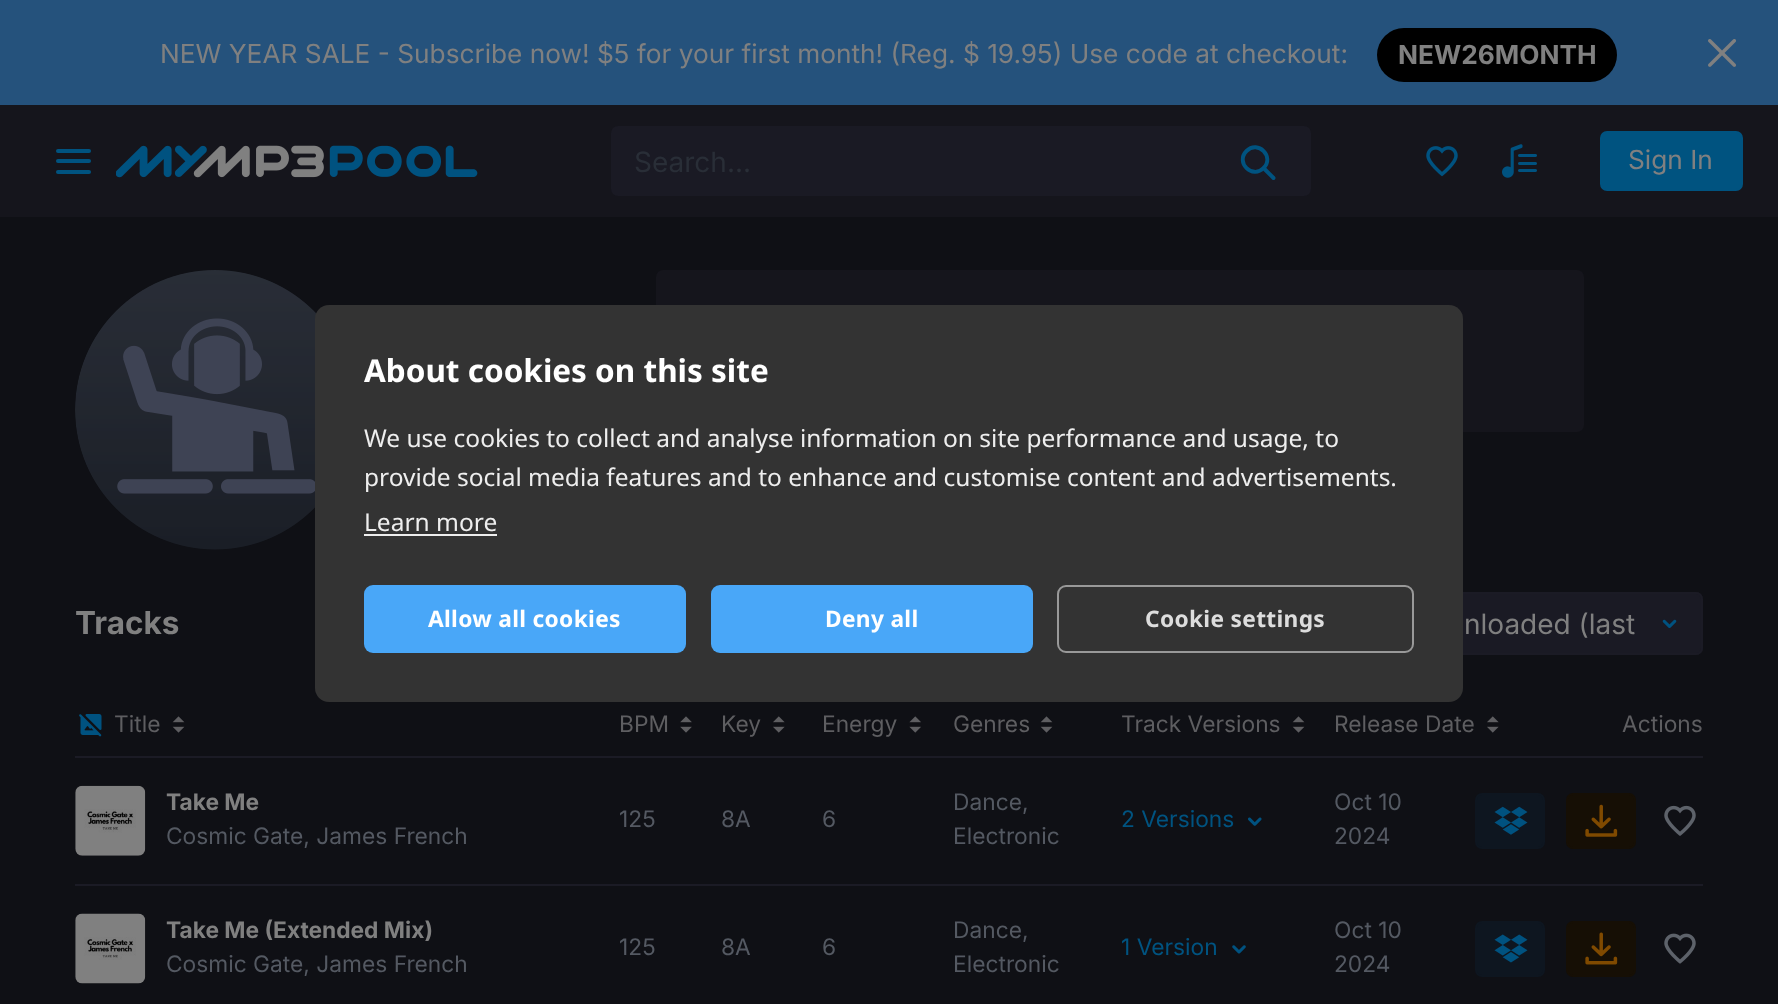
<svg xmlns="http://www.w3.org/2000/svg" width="1778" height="1004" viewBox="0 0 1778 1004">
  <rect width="100%" height="100%" fill="#0f1015"/>
  <rect x="0" y="105" width="1778" height="112" fill="#15151c"/>
  <rect x="0" y="0" width="1778" height="105" fill="#25527c"/>
  <text x="160" y="63" font-family="Inter" font-size="26.25" fill="#808080">NEW YEAR SALE - Subscribe now! $5 for your first month! (Reg. $ 19.95) Use code at checkout:</text>
  <rect x="1377" y="28" width="240" height="54" rx="27" fill="#000000"/>
  <text x="1398" y="64" font-family="Inter" font-size="26.25" font-weight="bold" fill="#808080">NEW26MONTH</text>
  <image x="1708" y="39" width="29" height="28" href="img1.png"/>
  <rect x="56" y="149" width="35" height="4" rx="2" fill="#005380"/>
  <rect x="56" y="159" width="35" height="4" rx="2" fill="#005380"/>
  <rect x="56" y="170" width="35" height="4" rx="2" fill="#005380"/>
  <image x="116" y="145" width="362" height="33" href="img2.png"/>
  <rect x="611" y="126" width="700" height="70" rx="7" fill="#1a1a24"/>
  <text x="634" y="172" font-family="Inter" font-size="28" fill="#292e37">Search...</text>
  <path d="M1263.5 168C1275 157 1258 139.5 1246.5 151C1235 162.5 1252.5 179.5 1263.5 168Z" fill="none" stroke="#005380" stroke-width="3.9"/>
  <path d="M1265 169.5L1273.5 178" fill="none" stroke="#005380" stroke-width="3.9" stroke-linecap="round" stroke-linejoin="round"/>
  <image x="1426" y="146" width="32" height="31" href="img3.png"/>
  <image x="1502" y="144" width="35" height="34" href="img4.png"/>
  <rect x="1601" y="132" width="141" height="58" rx="6" fill="#005380" stroke="#005380" stroke-width="2"/>
  <text x="1628" y="169" font-family="Inter" font-size="26.25" fill="#808080">Sign In</text>
  <image x="75" y="270" width="242" height="280" href="img5.png"/>
  <rect x="656" y="270" width="928" height="162" rx="7" fill="#15151c"/>
  <text x="75" y="634" font-family="Inter" font-size="31.5" font-weight="bold" fill="#808080">Tracks</text>
  <rect x="1311" y="592" width="392" height="63" rx="7" fill="#1a1a24"/>
  <image x="1662" y="619" width="15" height="9" href="img6.png"/>
  <rect x="1312" y="593" width="390" height="61" rx="6" fill="none" stroke="#1b1b25" stroke-width="2"/>
  <text x="1464" y="634" font-family="Inter" font-size="28" fill="#808080">nloaded (last</text>
  <rect x="75" y="756" width="1628" height="2" fill="#1b1b25"/>
  <image x="79" y="714" width="23" height="23" href="img7.png"/>
  <text x="114" y="732" font-family="Inter" font-size="22.75" fill="#5e5e61">Title</text>
  <image x="172" y="716" width="13" height="17" href="img8.png"/>
  <text x="619" y="732" font-family="Inter" font-size="22.75" fill="#5e5e61">BPM</text>
  <image x="680" y="716" width="12" height="17" href="img9.png"/>
  <text x="721" y="732" font-family="Inter" font-size="22.75" fill="#5e5e61">Key</text>
  <image x="773" y="716" width="12" height="17" href="img10.png"/>
  <text x="822" y="732" font-family="Inter" font-size="22.75" fill="#5e5e61">Energy</text>
  <image x="909" y="716" width="12" height="17" href="img11.png"/>
  <text x="953" y="732" font-family="Inter" font-size="22.75" fill="#5e5e61">Genres</text>
  <image x="1040" y="716" width="13" height="17" href="img8.png"/>
  <text x="1121" y="732" font-family="Inter" font-size="22.75" fill="#5e5e61">Track Versions</text>
  <image x="1292" y="716" width="13" height="17" href="img8.png"/>
  <text x="1334" y="732" font-family="Inter" font-size="22.75" fill="#5e5e61">Release Date</text>
  <image x="1487" y="716" width="12" height="17" href="img10.png"/>
  <text x="1622" y="732" font-family="Inter" font-size="22.75" fill="#5e5e61">Actions</text>
  <rect x="75" y="884" width="1628" height="2" fill="#1b1b25"/>
  <image x="75" y="785" width="71" height="71" href="img12.png"/>
  <text x="166" y="810" font-family="Inter" font-size="22.75" font-weight="bold" fill="#808080">Take Me</text>
  <text x="166" y="844" font-family="Inter" font-size="22.75" fill="#545962">Cosmic Gate, James French</text>
  <text x="619" y="827" font-family="Inter" font-size="22.75" fill="#545962">125</text>
  <text x="721" y="827" font-family="Inter" font-size="22.75" fill="#545962">8A</text>
  <text x="822" y="827" font-family="Inter" font-size="22.75" fill="#545962">6</text>
  <text x="953" y="810" font-family="Inter" font-size="22.75" fill="#545962">Dance,</text>
  <text x="953" y="844" font-family="Inter" font-size="22.75" fill="#545962">Electronic</text>
  <text x="1121" y="827" font-family="Inter" font-size="22.75" fill="#005380">2 Versions</text>
  <image x="1248" y="817" width="14" height="9" href="img13.png"/>
  <text x="1334" y="810" font-family="Inter" font-size="22.75" fill="#545962">Oct 10</text>
  <text x="1334" y="844" font-family="Inter" font-size="22.75" fill="#545962">2024</text>
  <rect x="1476" y="794" width="68" height="54" rx="6" fill="#0e1620" stroke="#0e1620" stroke-width="2"/>
  <image x="1494" y="806" width="34" height="29" href="img14.png"/>
  <rect x="1567" y="794" width="68" height="54" rx="6" fill="#160f05" stroke="#160f05" stroke-width="2"/>
  <image x="1585" y="804" width="33" height="33" href="img15.png"/>
  <image x="1664" y="805" width="32" height="31" href="img16.png"/>
  <image x="75" y="913" width="71" height="71" href="img17.png"/>
  <text x="166" y="938" font-family="Inter" font-size="22.75" font-weight="bold" fill="#808080">Take Me (Extended Mix)</text>
  <text x="166" y="972" font-family="Inter" font-size="22.75" fill="#545962">Cosmic Gate, James French</text>
  <text x="619" y="955" font-family="Inter" font-size="22.75" fill="#545962">125</text>
  <text x="721" y="955" font-family="Inter" font-size="22.75" fill="#545962">8A</text>
  <text x="822" y="955" font-family="Inter" font-size="22.75" fill="#545962">6</text>
  <text x="953" y="938" font-family="Inter" font-size="22.75" fill="#545962">Dance,</text>
  <text x="953" y="972" font-family="Inter" font-size="22.75" fill="#545962">Electronic</text>
  <text x="1121" y="955" font-family="Inter" font-size="22.75" fill="#005380">1 Version</text>
  <image x="1232" y="945" width="14" height="9" href="img18.png"/>
  <text x="1334" y="938" font-family="Inter" font-size="22.75" fill="#545962">Oct 10</text>
  <text x="1334" y="972" font-family="Inter" font-size="22.75" fill="#545962">2024</text>
  <rect x="1476" y="922" width="68" height="54" rx="6" fill="#0e1620" stroke="#0e1620" stroke-width="2"/>
  <image x="1494" y="934" width="34" height="29" href="img19.png"/>
  <rect x="1567" y="922" width="68" height="54" rx="6" fill="#160f05" stroke="#160f05" stroke-width="2"/>
  <image x="1585" y="932" width="33" height="33" href="img20.png"/>
  <image x="1664" y="933" width="32" height="31" href="img21.png"/>
  <rect x="315" y="305" width="1148" height="397" rx="14" fill="#333333"/>
  <text x="364" y="382" font-family="Noto Sans" font-size="31.5" font-weight="bold" fill="#ffffff">About cookies on this site</text>
  <text x="364" y="447" font-family="Noto Sans" font-size="24.5" fill="#eeeeee">We use cookies to collect and analyse information on site performance and usage, to</text>
  <text x="364" y="486" font-family="Noto Sans" font-size="24.5" fill="#eeeeee">provide social media features and to enhance and customise content and advertisements.</text>
  <text x="364" y="531" font-family="Noto Sans" font-size="24.5" fill="#eeeeee">Learn more</text>
  <rect x="364" y="534" width="133" height="2" fill="#eeeeee"/>
  <rect x="364" y="585" width="322" height="68" rx="9" fill="#49a7f8"/>
  <text x="428" y="627" font-family="Noto Sans" font-size="22.75" font-weight="bold" letter-spacing="0.3" fill="#ffffff">Allow all cookies</text>
  <rect x="711" y="585" width="322" height="68" rx="9" fill="#49a7f8"/>
  <text x="825" y="627" font-family="Noto Sans" font-size="22.75" font-weight="bold" letter-spacing="0.3" fill="#ffffff">Deny all</text>
  <rect x="1058" y="586" width="355" height="66" rx="8" fill="none" stroke="#999999" stroke-width="2"/>
  <text x="1145" y="627" font-family="Noto Sans" font-size="22.75" font-weight="bold" letter-spacing="0.3" fill="#dddddd">Cookie settings</text>
</svg>
